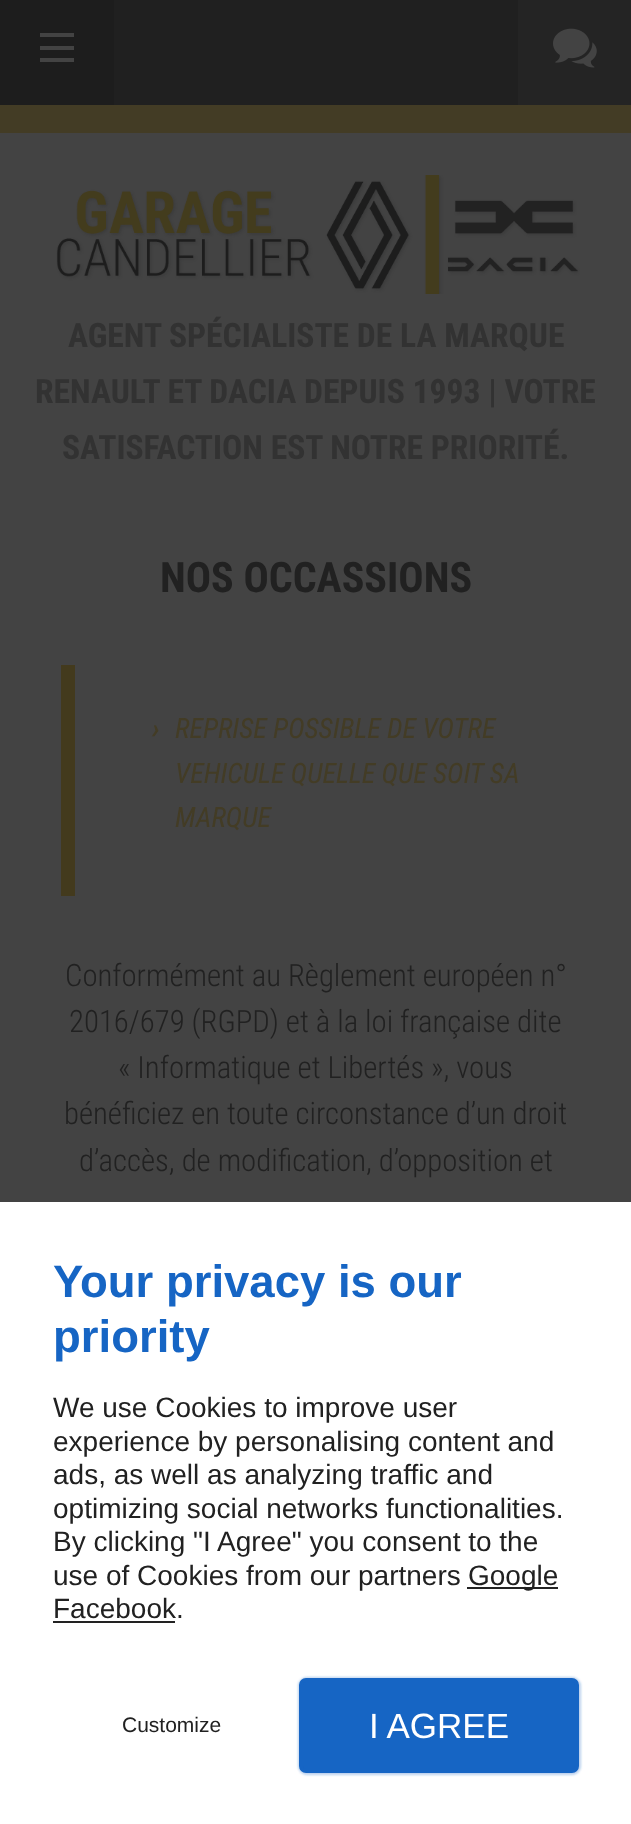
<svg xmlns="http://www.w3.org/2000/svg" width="631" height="1824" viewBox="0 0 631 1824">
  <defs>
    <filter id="blur1" x="-50%" y="-200%" width="200%" height="500%"><feGaussianBlur stdDeviation="1"/></filter>
  </defs>
  <rect width="100%" height="100%" fill="#434343"/>
  <rect x="114" y="0" width="404" height="105" fill="#202020"/>
  <rect x="0" y="0" width="114" height="105" fill="#1d1d1d"/>
  <rect x="40" y="58" width="34" height="4" fill="#434343"/>
  <rect x="40" y="46" width="34" height="4" fill="#434343"/>
  <rect x="40" y="33" width="34" height="4" fill="#434343"/>
  <rect x="518" y="0" width="113" height="105" fill="#242424"/>
  <image x="553" y="28" width="44" height="40" href="img1.png"/>
  <rect x="0" y="105" width="631" height="28" fill="#433c25"/>
  <image x="56" y="175" width="524" height="119" href="img2.png"/>
  <text x="68" y="347" font-family="Roboto Condensed" font-size="33.6" font-weight="bold" fill="#323232">AGENT SPÉCIALISTE DE LA MARQUE</text>
  <text x="35" y="403" font-family="Roboto Condensed" font-size="33.6" font-weight="bold" fill="#323232">RENAULT ET DACIA DEPUIS 1993 | VOTRE</text>
  <text x="62" y="459" font-family="Roboto Condensed" font-size="33.6" font-weight="bold" fill="#323232">SATISFACTION EST NOTRE PRIORITÉ.</text>
  <text x="160" y="592" font-family="Roboto Condensed" font-size="42" font-weight="bold" fill="#212121">NOS OCCASSIONS</text>
  <rect x="61" y="665" width="14" height="231" fill="#433a1d"/>
  <text x="152" y="738" font-family="Roboto Condensed" font-size="28" font-weight="bold" font-style="italic" fill="#433c25">›</text>
  <text x="175" y="738" font-family="Roboto Condensed" font-size="28" font-style="italic" fill="#433c25">REPRISE POSSIBLE DE VOTRE</text>
  <text x="175" y="783" font-family="Roboto Condensed" font-size="28" font-style="italic" fill="#433c25">VEHICULE QUELLE QUE SOIT SA</text>
  <text x="175" y="827" font-family="Roboto Condensed" font-size="28" font-style="italic" fill="#433c25">MARQUE</text>
  <text x="65" y="986" font-family="Roboto Condensed" font-size="30.75" font-weight="300" fill="#212121">Conformément au Règlement européen n°</text>
  <text x="69" y="1032" font-family="Roboto Condensed" font-size="30.75" font-weight="300" fill="#212121">2016/679 (RGPD) et à la loi française dite</text>
  <text x="118" y="1078" font-family="Roboto Condensed" font-size="30.75" font-weight="300" fill="#212121">« Informatique et Libertés », vous</text>
  <text x="64" y="1124" font-family="Roboto Condensed" font-size="30.75" font-weight="300" fill="#212121">bénéficiez en toute circonstance d’un droit</text>
  <text x="79" y="1171" font-family="Roboto Condensed" font-size="30.75" font-weight="300" fill="#212121">d’accès, de modification, d’opposition et</text>
  <rect x="0" y="1202" width="631" height="622" fill="#ffffff"/>
  <text x="53" y="1297" font-family="Liberation Sans" font-size="45.5" font-weight="bold" fill="#1665c4">Your privacy is our</text>
  <text x="53" y="1352" font-family="Liberation Sans" font-size="45.5" font-weight="bold" fill="#1665c4">priority</text>
  <text x="53" y="1417" font-family="Liberation Sans" font-size="28" fill="#212121">We use Cookies to improve user</text>
  <text x="53" y="1451" font-family="Liberation Sans" font-size="28" fill="#212121">experience by personalising content and</text>
  <text x="53" y="1484" font-family="Liberation Sans" font-size="28" fill="#212121">ads, as well as analyzing traffic and</text>
  <text x="53" y="1518" font-family="Liberation Sans" font-size="28" fill="#212121">optimizing social networks functionalities.</text>
  <text x="53" y="1551" font-family="Liberation Sans" font-size="28" fill="#212121">By clicking "I Agree" you consent to the</text>
  <text x="53" y="1585" font-family="Liberation Sans" font-size="28" fill="#212121">use of Cookies from our partners</text>
  <rect x="467" y="1587" width="91" height="2" fill="#222222"/>
  <text x="468" y="1585" font-family="Liberation Sans" font-size="28" fill="#212121">Google</text>
  <text x="53" y="1618" font-family="Liberation Sans" font-size="28" fill="#212121">Facebook.</text>
  <rect x="53" y="1621" width="122" height="2" fill="#222222"/>
  <text x="122" y="1732" font-family="Liberation Sans" font-size="21" fill="#212121">Customize</text>
  <rect x="298" y="1677" width="283" height="98" rx="9" fill="#1665c4" fill-opacity="0.3" filter="url(#blur1)"/>
  <rect x="301" y="1680" width="276" height="91" rx="5" fill="#1665c4" stroke="#1665c4" stroke-width="4"/>
  <text x="369" y="1738" font-family="Liberation Sans" font-size="35" fill="#ffffff">I AGREE</text>
</svg>
